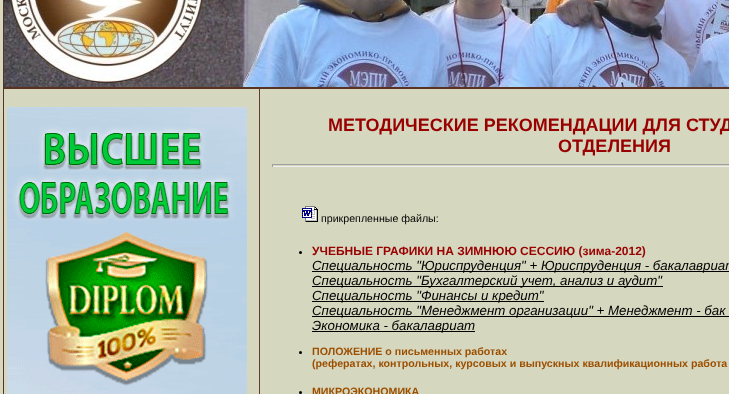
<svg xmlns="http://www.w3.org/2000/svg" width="729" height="394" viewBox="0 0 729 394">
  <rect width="100%" height="100%" fill="#d5d7bf"/>
  <rect x="3.5" y="-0.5" width="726" height="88" fill="none" stroke="#5a3222"/>
  <image x="4" y="0" width="725" height="87" href="img1.png"/>
  <rect x="3.5" y="88.5" width="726" height="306" fill="none" stroke="#5a3222"/>
  <image x="7" y="107" width="240" height="287" href="img2.png"/>
  <rect x="259" y="89" width="1" height="305" fill="#653c2b"/>
  <text x="328" y="131" font-family="Liberation Sans" font-size="18" font-weight="bold" fill="#990000">МЕТОДИЧЕСКИЕ РЕКОМЕНДАЦИИ ДЛЯ СТУД</text>
  <text x="558" y="152" font-family="Liberation Sans" font-size="18" font-weight="bold" fill="#990000">ОТДЕЛЕНИЯ</text>
  <rect x="272" y="164" width="457" height="1" fill="#9f9f9f"/>
  <rect x="272" y="166" width="457" height="1" fill="#eeeeee"/>
  <rect x="272" y="164" width="1" height="3" fill="#9f9f9f"/>
  <image x="302" y="206" width="16" height="16" href="img3.png"/>
  <text x="321" y="222" font-family="Liberation Sans" font-size="10.65" fill="#000000">прикрепленные файлы:</text>
  <circle cx="300.5" cy="252.5" r="1.5" fill="#000000"/>
  <text x="312" y="255" font-family="Liberation Sans" font-size="12" font-weight="bold" fill="#990000">УЧЕБНЫЕ ГРАФИКИ НА ЗИМНЮЮ СЕССИЮ (зима-2012)</text>
  <rect x="312" y="271" width="417" height="1" fill="#000000"/>
  <text x="312" y="270" font-family="Liberation Sans" font-size="13.3" font-style="italic" fill="#000000">Специальность "Юриспруденция" + Юриспруденция - бакалавриат</text>
  <rect x="312" y="286" width="351" height="1" fill="#000000"/>
  <text x="312" y="285" font-family="Liberation Sans" font-size="13.3" font-style="italic" fill="#000000">Специальность "Бухгалтерский учет, анализ и аудит"</text>
  <rect x="312" y="301" width="232" height="1" fill="#000000"/>
  <text x="312" y="300" font-family="Liberation Sans" font-size="13.3" font-style="italic" fill="#000000">Специальноcть "Финансы и кредит"</text>
  <rect x="312" y="316" width="417" height="1" fill="#000000"/>
  <text x="312" y="315" font-family="Liberation Sans" font-size="13.3" font-style="italic" fill="#000000">Специальность "Менеджмент организации" + Менеджмент - бак</text>
  <rect x="312" y="331" width="163" height="1" fill="#000000"/>
  <text x="312" y="330" font-family="Liberation Sans" font-size="13.3" font-style="italic" fill="#000000">Экономика - бакалавриат</text>
  <circle cx="300.5" cy="352.5" r="1.5" fill="#000000"/>
  <text x="312" y="355" font-family="Liberation Sans" font-size="10.65" font-weight="bold" fill="#9d4f00">ПОЛОЖЕНИЕ о письменных работах</text>
  <text x="312" y="367" font-family="Liberation Sans" font-size="10.65" font-weight="bold" fill="#9d4f00">(рефератах, контрольных, курсовых и выпускных квалификационных работа</text>
  <circle cx="300.5" cy="392.5" r="1.5" fill="#000000"/>
  <text x="312" y="395" font-family="Liberation Sans" font-size="10.65" font-weight="bold" fill="#9d4f00">МИКРОЭКОНОМИКА</text>
</svg>
